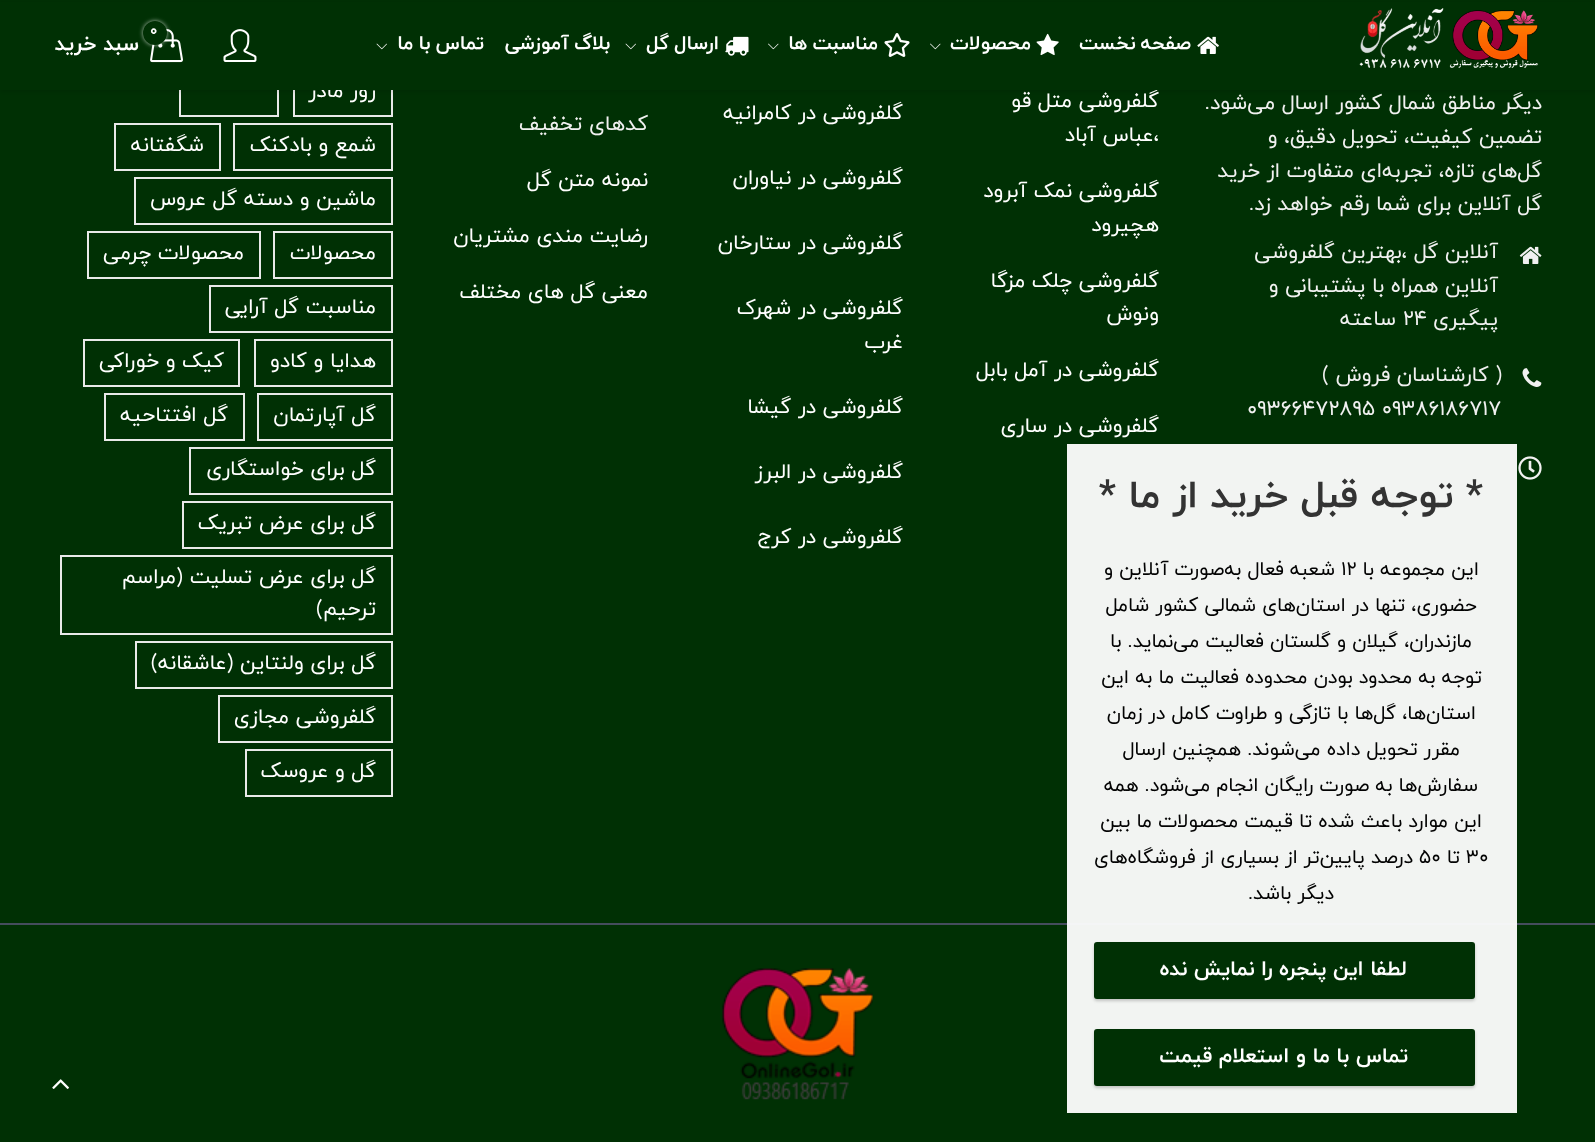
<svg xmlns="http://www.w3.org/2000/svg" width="1595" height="1142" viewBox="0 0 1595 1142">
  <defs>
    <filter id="blur1" x="-50%" y="-200%" width="200%" height="500%"><feGaussianBlur stdDeviation="2"/></filter>
    <filter id="blur2" x="-50%" y="-200%" width="200%" height="500%"><feGaussianBlur stdDeviation="1.5"/></filter>
  </defs>
  <rect width="100%" height="100%" fill="#003004"/>
  <rect x="294" y="70" width="98" height="46" fill="none" stroke="#e9e9e9" stroke-width="2"/>
  <rect x="180" y="70" width="98" height="46" fill="none" stroke="#e9e9e9" stroke-width="2"/>
  <rect x="0" y="2" width="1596" height="90" fill="#000000" fill-opacity="0.1" filter="url(#blur1)"/>
  <text x="1159" y="107" font-family="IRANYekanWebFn" font-size="21" direction="rtl" fill="#ffffff">گلفروشی متل قو</text>
  <text x="376" y="97" font-family="IRANYekanWebFn" font-size="21" direction="rtl" fill="#ffffff">روز مادر</text>
  <rect x="0" y="2" width="1595" height="88" fill="#003004"/>
  <image x="1359" y="8" width="180" height="60" href="img1.png"/>
  <image x="1197" y="36" width="22" height="18" href="img2.png"/>
  <text x="1191" y="49" word-spacing="-1" font-family="IRANYekanWebFn" font-size="19.5" font-weight="bold" letter-spacing="0.25" direction="rtl" fill="#ffffff">صفحه نخست</text>
  <image x="1036" y="33" width="23" height="23" href="img3.png"/>
  <text x="1031" y="49" font-family="IRANYekanWebFn" font-size="19.5" font-weight="bold" letter-spacing="0.25" direction="rtl" fill="#ffffff">محصولات</text>
  <image x="930" y="43" width="11" height="7" href="img4.png"/>
  <image x="884" y="33" width="26" height="24" href="img5.png"/>
  <text x="878" y="49" word-spacing="-1" font-family="IRANYekanWebFn" font-size="19.5" font-weight="bold" letter-spacing="0.25" direction="rtl" fill="#ffffff">مناسبت ها</text>
  <image x="768" y="43" width="11" height="7" href="img4.png"/>
  <image x="725" y="36" width="24" height="20" href="img6.png"/>
  <text x="719" y="49" word-spacing="-1" font-family="IRANYekanWebFn" font-size="19.5" font-weight="bold" letter-spacing="0.25" direction="rtl" fill="#ffffff">ارسال گل</text>
  <image x="625" y="43" width="11" height="7" href="img7.png"/>
  <text x="610" y="49" word-spacing="-1" font-family="IRANYekanWebFn" font-size="19.5" font-weight="bold" letter-spacing="0.25" direction="rtl" fill="#ffffff">بلاگ آموزشی</text>
  <text x="484" y="49" word-spacing="-1" font-family="IRANYekanWebFn" font-size="19.5" font-weight="bold" letter-spacing="0.25" direction="rtl" fill="#ffffff">تماس با ما</text>
  <image x="376" y="43" width="11" height="7" href="img7.png"/>
  <image x="223" y="29" width="34" height="33" href="img8.png"/>
  <image x="150" y="29" width="33" height="34" href="img9.png"/>
  <rect x="143" y="21" width="24" height="24" rx="12" fill="#ffffff" fill-opacity="0.7" filter="url(#blur1)"/>
  <circle cx="155" cy="33" r="12" fill="#003004"/>
  <text x="150" y="35" font-family="IRANYekanWebFn" font-size="15" font-weight="bold" fill="#ffffff">0</text>
  <text x="139" y="50" font-family="IRANYekanWebFn" font-size="21" font-weight="bold" direction="rtl" fill="#ffffff">سبد خرید</text>
  <text x="1542" y="109" font-family="IRANYekanWebFn" font-size="21" direction="rtl" fill="#f1f1f1">دیگر مناطق شمال کشور ارسال می‌شود.</text>
  <text x="1542" y="143" font-family="IRANYekanWebFn" font-size="21" direction="rtl" fill="#f1f1f1">تضمین کیفیت، تحویل دقیق، و</text>
  <text x="1542" y="177" font-family="IRANYekanWebFn" font-size="21" direction="rtl" fill="#f1f1f1">گل‌های تازه، تجربه‌ای متفاوت از خرید</text>
  <text x="1542" y="210" font-family="IRANYekanWebFn" font-size="21" direction="rtl" fill="#f1f1f1">گل آنلاین برای شما رقم خواهد زد.</text>
  <image x="1519" y="246" width="23" height="18" href="img10.png"/>
  <text x="1498" y="258" font-family="IRANYekanWebFn" font-size="21" direction="rtl" fill="#f1f1f1">آنلاین گل ،بهترین گلفروشی</text>
  <text x="1498" y="292" font-family="IRANYekanWebFn" font-size="21" direction="rtl" fill="#f1f1f1">آنلاین همراه با پشتیبانی و</text>
  <text x="1498" y="325" font-family="IRANYekanWebFn" font-size="21" direction="rtl" fill="#f1f1f1">پیگیری</text>
  <text x="1403" y="325" font-family="IRANYekanWebFn" font-size="21" fill="#f1f1f1">24</text>
  <text x="1396" y="325" font-family="IRANYekanWebFn" font-size="21" direction="rtl" fill="#f1f1f1">ساعته</text>
  <image x="1522" y="368" width="20" height="19" href="img11.png"/>
  <text x="1502" y="381" font-family="IRANYekanWebFn" font-size="21" direction="rtl" fill="#f1f1f1">( کارشناسان فروش )</text>
  <text x="1247" y="415" font-family="IRANYekanWebFn" font-size="21" fill="#f1f1f1">09366472895 09386186717</text>
  <image x="1518" y="456" width="24" height="24" href="img12.png"/>
  <text x="1159" y="141" font-family="IRANYekanWebFn" font-size="21" direction="rtl" fill="#ffffff">،عباس آباد</text>
  <text x="1159" y="197" font-family="IRANYekanWebFn" font-size="21" direction="rtl" fill="#ffffff">گلفروشی نمک آبرود</text>
  <text x="1159" y="231" font-family="IRANYekanWebFn" font-size="21" direction="rtl" fill="#ffffff">هچیرود</text>
  <text x="1159" y="287" font-family="IRANYekanWebFn" font-size="21" direction="rtl" fill="#ffffff">گلفروشی چلک مزگا</text>
  <text x="1159" y="320" font-family="IRANYekanWebFn" font-size="21" direction="rtl" fill="#ffffff">ونوش</text>
  <text x="1159" y="376" font-family="IRANYekanWebFn" font-size="21" direction="rtl" fill="#ffffff">گلفروشی در آمل بابل</text>
  <text x="1159" y="432" font-family="IRANYekanWebFn" font-size="21" direction="rtl" fill="#ffffff">گلفروشی در ساری</text>
  <text x="903" y="119" font-family="IRANYekanWebFn" font-size="21" direction="rtl" fill="#ffffff">گلفروشی در کامرانیه</text>
  <text x="903" y="184" font-family="IRANYekanWebFn" font-size="21" direction="rtl" fill="#ffffff">گلفروشی در نیاوران</text>
  <text x="903" y="249" font-family="IRANYekanWebFn" font-size="21" direction="rtl" fill="#ffffff">گلفروشی در ستارخان</text>
  <text x="903" y="314" font-family="IRANYekanWebFn" font-size="21" direction="rtl" fill="#ffffff">گلفروشی در شهرک</text>
  <text x="903" y="348" font-family="IRANYekanWebFn" font-size="21" direction="rtl" fill="#ffffff">غرب</text>
  <text x="903" y="413" font-family="IRANYekanWebFn" font-size="21" direction="rtl" fill="#ffffff">گلفروشی در گیشا</text>
  <text x="903" y="478" font-family="IRANYekanWebFn" font-size="21" direction="rtl" fill="#ffffff">گلفروشی در البرز</text>
  <text x="903" y="543" font-family="IRANYekanWebFn" font-size="21" direction="rtl" fill="#ffffff">گلفروشی در کرج</text>
  <text x="648" y="130" font-family="IRANYekanWebFn" font-size="21" direction="rtl" fill="#f1f1f1">کدهای تخفیف</text>
  <text x="648" y="186" font-family="IRANYekanWebFn" font-size="21" direction="rtl" fill="#ffffff">نمونه متن گل</text>
  <text x="648" y="242" font-family="IRANYekanWebFn" font-size="21" direction="rtl" fill="#ffffff">رضایت مندی مشتریان</text>
  <text x="648" y="298" font-family="IRANYekanWebFn" font-size="21" direction="rtl" fill="#ffffff">معنی گل های مختلف</text>
  <rect x="234" y="124" width="158" height="46" fill="none" stroke="#e9e9e9" stroke-width="2"/>
  <text x="376" y="151" font-family="IRANYekanWebFn" font-size="21" direction="rtl" fill="#ffffff">شمع و بادکنک</text>
  <rect x="115" y="124" width="105" height="46" fill="none" stroke="#e9e9e9" stroke-width="2"/>
  <text x="204" y="151" font-family="IRANYekanWebFn" font-size="21" direction="rtl" fill="#ffffff">شگفتانه</text>
  <rect x="135" y="178" width="257" height="46" fill="none" stroke="#e9e9e9" stroke-width="2"/>
  <text x="376" y="205" font-family="IRANYekanWebFn" font-size="21" direction="rtl" fill="#ffffff">ماشین و دسته گل عروس</text>
  <rect x="274" y="232" width="118" height="46" fill="none" stroke="#e9e9e9" stroke-width="2"/>
  <text x="376" y="259" font-family="IRANYekanWebFn" font-size="21" direction="rtl" fill="#ffffff">محصولات</text>
  <rect x="88" y="232" width="172" height="46" fill="none" stroke="#e9e9e9" stroke-width="2"/>
  <text x="244" y="259" font-family="IRANYekanWebFn" font-size="21" direction="rtl" fill="#ffffff">محصولات چرمی</text>
  <rect x="210" y="286" width="182" height="46" fill="none" stroke="#e9e9e9" stroke-width="2"/>
  <text x="376" y="313" font-family="IRANYekanWebFn" font-size="21" direction="rtl" fill="#ffffff">مناسبت گل آرایی</text>
  <rect x="255" y="340" width="137" height="46" fill="none" stroke="#e9e9e9" stroke-width="2"/>
  <text x="376" y="367" font-family="IRANYekanWebFn" font-size="21" direction="rtl" fill="#ffffff">هدایا و کادو</text>
  <rect x="84" y="340" width="155" height="46" fill="none" stroke="#e9e9e9" stroke-width="2"/>
  <text x="224" y="367" font-family="IRANYekanWebFn" font-size="21" direction="rtl" fill="#ffffff">کیک و خوراکی</text>
  <rect x="258" y="394" width="134" height="46" fill="none" stroke="#e9e9e9" stroke-width="2"/>
  <text x="376" y="421" font-family="IRANYekanWebFn" font-size="21" direction="rtl" fill="#ffffff">گل آپارتمان</text>
  <rect x="105" y="394" width="139" height="46" fill="none" stroke="#e9e9e9" stroke-width="2"/>
  <text x="228" y="421" font-family="IRANYekanWebFn" font-size="21" direction="rtl" fill="#ffffff">گل افتتاحیه</text>
  <rect x="190" y="448" width="202" height="46" fill="none" stroke="#e9e9e9" stroke-width="2"/>
  <text x="376" y="475" font-family="IRANYekanWebFn" font-size="21" direction="rtl" fill="#ffffff">گل برای خواستگاری</text>
  <rect x="183" y="502" width="209" height="46" fill="none" stroke="#e9e9e9" stroke-width="2"/>
  <text x="376" y="529" font-family="IRANYekanWebFn" font-size="21" direction="rtl" fill="#ffffff">گل برای عرض تبریک</text>
  <rect x="61" y="556" width="331" height="78" fill="none" stroke="#e9e9e9" stroke-width="2"/>
  <text x="376" y="583" font-family="IRANYekanWebFn" font-size="21" direction="rtl" fill="#ffffff">گل برای عرض تسلیت (مراسم</text>
  <text x="376" y="615" font-family="IRANYekanWebFn" font-size="21" direction="rtl" fill="#ffffff">ترحیم)</text>
  <rect x="136" y="642" width="256" height="46" fill="none" stroke="#e9e9e9" stroke-width="2"/>
  <text x="376" y="669" font-family="IRANYekanWebFn" font-size="21" direction="rtl" fill="#ffffff">گل برای ولنتاین (عاشقانه)</text>
  <rect x="219" y="696" width="173" height="46" fill="none" stroke="#e9e9e9" stroke-width="2"/>
  <text x="376" y="723" font-family="IRANYekanWebFn" font-size="21" direction="rtl" fill="#ffffff">گلفروشی مجازی</text>
  <rect x="246" y="750" width="146" height="46" fill="none" stroke="#e9e9e9" stroke-width="2"/>
  <text x="376" y="777" font-family="IRANYekanWebFn" font-size="21" direction="rtl" fill="#ffffff">گل و عروسک</text>
  <rect x="0" y="923" width="1595" height="2" fill="#454d5e"/>
  <image x="722" y="968" width="151" height="132" href="img13.png"/>
  <image x="52" y="1079" width="17" height="10" href="img14.png"/>
  <rect x="1067" y="444" width="450" height="669" fill="#fcfcfc" fill-opacity="0.96"/>
  <text x="1483" y="507" font-family="IRANYekanWebFn" font-size="39" font-weight="bold" direction="rtl" fill="#333333">* توجه قبل خرید از ما *</text>
  <text x="1479" y="575" font-family="IRANYekanWebFn" font-size="19.5" direction="rtl" fill="#020202">این مجموعه با</text>
  <text x="1341" y="575" font-family="IRANYekanWebFn" font-size="19.5" fill="#020202">۱۲</text>
  <text x="1335" y="575" font-family="IRANYekanWebFn" font-size="19.5" direction="rtl" fill="#020202">شعبه فعال به‌صورت آنلاین و</text>
  <text x="1477" y="611" font-family="IRANYekanWebFn" font-size="19.5" direction="rtl" fill="#020202">حضوری، تنها در استان‌های شمالی کشور شامل</text>
  <text x="1472" y="647" font-family="IRANYekanWebFn" font-size="19.5" direction="rtl" fill="#020202">مازندران، گیلان و گلستان فعالیت می‌نماید. با</text>
  <text x="1482" y="683" font-family="IRANYekanWebFn" font-size="19.5" direction="rtl" fill="#020202">توجه به محدود بودن محدوده فعالیت ما به این</text>
  <text x="1476" y="719" font-family="IRANYekanWebFn" font-size="19.5" direction="rtl" fill="#020202">استان‌ها، گل‌ها با تازگی و طراوت کامل در زمان</text>
  <text x="1460" y="755" font-family="IRANYekanWebFn" font-size="19.5" direction="rtl" fill="#020202">مقرر تحویل داده می‌شوند. همچنین ارسال</text>
  <text x="1478" y="791" font-family="IRANYekanWebFn" font-size="19.5" direction="rtl" fill="#020202">سفارش‌ها به صورت رایگان انجام می‌شود. همه</text>
  <text x="1482" y="827" font-family="IRANYekanWebFn" font-size="19.5" direction="rtl" fill="#020202">این موارد باعث شده تا قیمت محصولات ما بین</text>
  <text x="1466" y="863" font-family="IRANYekanWebFn" font-size="19.5" fill="#020202">۳۰</text>
  <text x="1460" y="863" font-family="IRANYekanWebFn" font-size="19.5" direction="rtl" fill="#020202">تا</text>
  <text x="1419" y="863" font-family="IRANYekanWebFn" font-size="19.5" fill="#020202">۵۰</text>
  <text x="1413" y="863" font-family="IRANYekanWebFn" font-size="19.5" direction="rtl" fill="#020202">درصد پایین‌تر از بسیاری از فروشگاه‌های</text>
  <text x="1334" y="899" font-family="IRANYekanWebFn" font-size="19.5" direction="rtl" fill="#020202">دیگر باشد.</text>
  <rect x="1094" y="944" width="381" height="57" rx="3" fill="#000000" fill-opacity="0.2" filter="url(#blur2)"/>
  <rect x="1094" y="942" width="381" height="57" rx="3" fill="#003004"/>
  <text x="1407" y="975" font-family="IRANYekanWebFn" font-size="21" font-weight="bold" direction="rtl" fill="#ffffff">لطفا این پنجره را نمایش نده</text>
  <rect x="1094" y="1031" width="381" height="57" rx="3" fill="#000000" fill-opacity="0.2" filter="url(#blur2)"/>
  <rect x="1094" y="1029" width="381" height="57" rx="3" fill="#003004"/>
  <text x="1408" y="1062" font-family="IRANYekanWebFn" font-size="21" font-weight="bold" direction="rtl" fill="#ffffff">تماس با ما و استعلام قیمت</text>
</svg>
